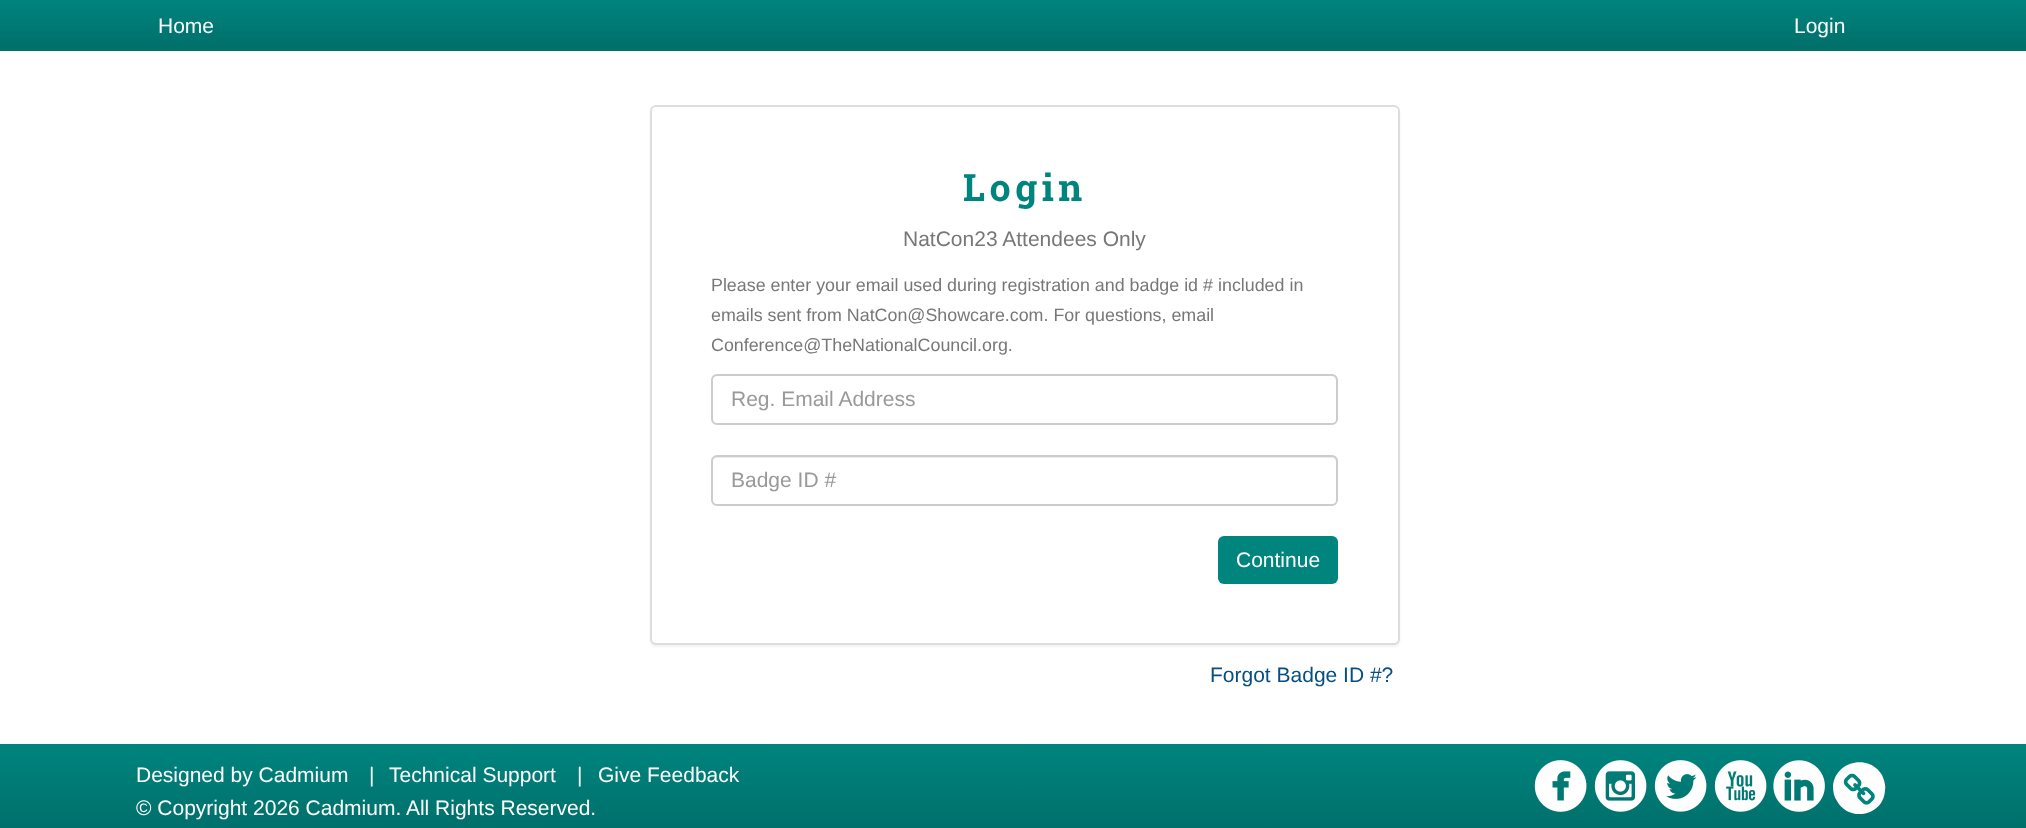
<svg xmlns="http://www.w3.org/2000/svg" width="2026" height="828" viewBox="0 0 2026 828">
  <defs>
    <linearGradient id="g1" gradientUnits="userSpaceOnUse" x1="1013" y1="0" x2="1013" y2="51"><stop offset="0" stop-color="#00847e"/><stop offset="1" stop-color="#016e69"/></linearGradient>
    <filter id="blur1" x="-50%" y="-200%" width="200%" height="500%"><feGaussianBlur stdDeviation="1"/></filter>
    <linearGradient id="g2" gradientUnits="userSpaceOnUse" x1="1013" y1="744" x2="1013" y2="828"><stop offset="0" stop-color="#00847e"/><stop offset="1" stop-color="#00706b"/></linearGradient>
  </defs>
  <rect width="100%" height="100%" fill="#ffffff"/>
  <rect x="0" y="0" width="2026" height="51" fill="url(#g1)"/>
  <text x="158" y="33" font-family="Liberation Sans" font-size="21" fill="#fefefe">Home</text>
  <text x="1794" y="33" font-family="Liberation Sans" font-size="21" fill="#fefefe">Login</text>
  <rect x="650" y="107" width="750" height="540" rx="6" fill="#000000" fill-opacity="0.05" filter="url(#blur1)"/>
  <rect x="651" y="106" width="748" height="538" rx="5" fill="#ffffff" stroke="#dddddd" stroke-width="2"/>
  <text x="963" y="201" font-family="Roboto Slab" font-size="37.5" font-weight="bold" letter-spacing="4.5" fill="#00847e">Login</text>
  <text x="903" y="246" font-family="Liberation Sans" font-size="21" fill="#777777">NatCon23 Attendees Only</text>
  <text x="711" y="291" font-family="Liberation Sans" font-size="17.85" fill="#777777">Please enter your email used during registration and badge id #</text>
  <text x="1218" y="291" font-family="Liberation Sans" font-size="17.85" fill="#777777">included in</text>
  <text x="711" y="321" font-family="Liberation Sans" font-size="17.85" fill="#777777">emails sent from NatCon@Showcare.com. For questions, email</text>
  <text x="711" y="351" font-family="Liberation Sans" font-size="17.85" fill="#777777">Conference@TheNationalCouncil.org.</text>
  <path d="M717 376H1332C1334 376 1336 379 1336 381V421C1337 420 1337 419 1337 418V380C1337 377 1335 375 1332 375H718C716 375 714 376 713 378C714 377 716 376 717 376Z" fill="#ececec"/>
  <rect x="712" y="375" width="625" height="49" rx="5" fill="none" stroke="#cccccc" stroke-width="2"/>
  <text x="731" y="406" font-family="Liberation Sans" font-size="21" fill="#999999">Reg. Email Address</text>
  <path d="M717 458H1332C1334 458 1336 460 1336 462V502C1337 501 1337 500 1337 499V461C1337 458 1335 456 1332 456H718C716 456 714 458 713 460C714 459 716 458 717 458Z" fill="#ececec"/>
  <rect x="712" y="456" width="625" height="49" rx="5" fill="none" stroke="#cccccc" stroke-width="2"/>
  <text x="731" y="487" font-family="Liberation Sans" font-size="21" fill="#999999">Badge ID #</text>
  <rect x="1218" y="536" width="120" height="48" rx="6" fill="#00847e"/>
  <text x="1236" y="567" font-family="Liberation Sans" font-size="21" fill="#fefefe">Continue</text>
  <text x="1210" y="682" font-family="Liberation Sans" font-size="21" fill="#064f80">Forgot Badge ID #?</text>
  <rect x="0" y="744" width="2026" height="84" fill="url(#g2)"/>
  <text x="136" y="782" font-family="Liberation Sans" font-size="21" fill="#fefefe">Designed by Cadmium</text>
  <text x="369" y="782" font-family="Liberation Sans" font-size="21" fill="#fefefe">|</text>
  <text x="389" y="782" font-family="Liberation Sans" font-size="21" fill="#fefefe">Technical Support</text>
  <text x="577" y="782" font-family="Liberation Sans" font-size="21" fill="#fefefe">|</text>
  <text x="598" y="782" font-family="Liberation Sans" font-size="21" fill="#fefefe">Give Feedback</text>
  <text x="136" y="815" font-family="Liberation Sans" font-size="21" fill="#fefefe">© Copyright 2026 Cadmium. All Rights Reserved.</text>
  <image x="1534" y="760" width="53" height="52" href="img1.png"/>
  <image x="1594" y="760" width="53" height="52" href="img2.png"/>
  <image x="1654" y="760" width="53" height="52" href="img3.png"/>
  <image x="1714" y="760" width="53" height="52" href="img4.png"/>
  <image x="1773" y="760" width="52" height="52" href="img5.png"/>
  <path d="M1882 775C1884 780 1886 785 1885 790C1884 816 1849 823 1837 801C1834 797 1833 792 1833 786C1835 761 1869 753 1882 775Z" fill="#fefefe"/>
  <image x="1843" y="773" width="32" height="32" href="img6.png"/>
</svg>
